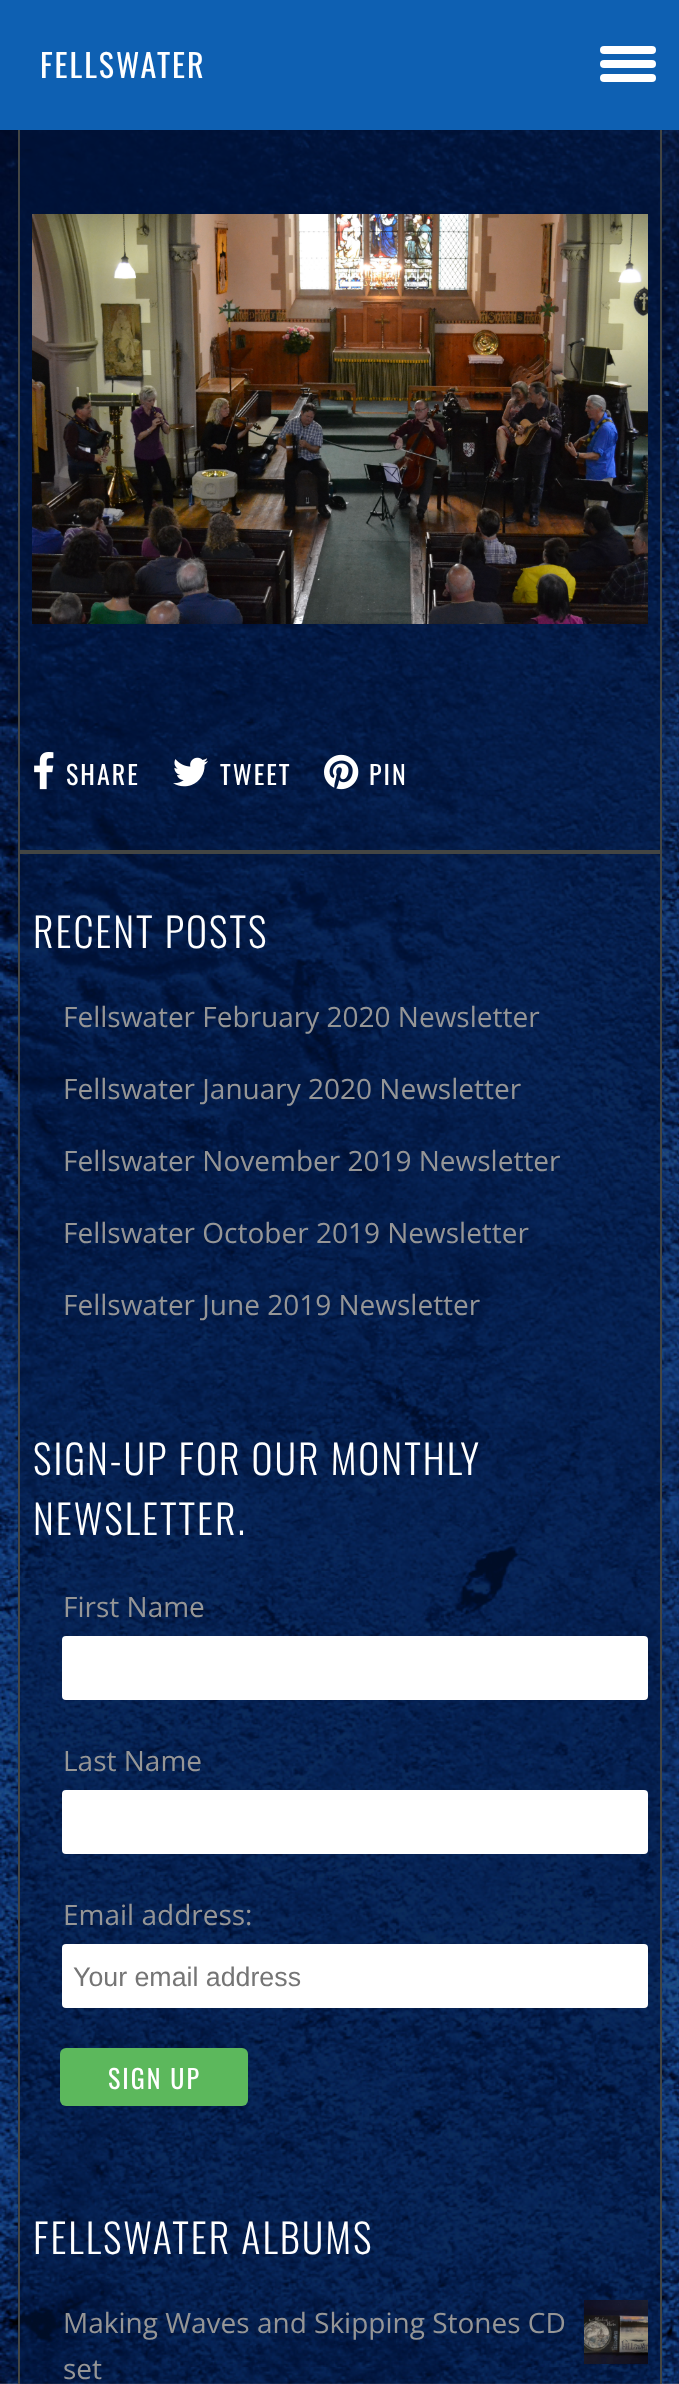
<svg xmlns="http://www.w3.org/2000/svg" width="679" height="2384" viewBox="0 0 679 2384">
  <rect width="100%" height="100%" fill="#ffffff"/>
  <image x="0" y="130" width="679" height="2254" href="img1.png"/>
  <rect x="20" y="130" width="640" height="720" fill="#00153f" fill-opacity="0.6"/>
  <rect x="19" y="-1" width="642" height="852" fill="none" stroke="#434543" stroke-width="2"/>
  <rect x="0" y="0" width="679" height="130" fill="#0e60b2"/>
  <text x="40" y="78" font-family="Oswald" font-size="32" letter-spacing="2" fill="#ffffff">FELLSWATER</text>
  <rect x="600" y="46" width="56" height="8" rx="4" fill="#ffffff"/>
  <rect x="600" y="60" width="56" height="8" rx="4" fill="#ffffff"/>
  <rect x="600" y="74" width="56" height="8" rx="4" fill="#ffffff"/>
  <image x="32" y="214" width="616" height="410" href="img2.png"/>
  <image x="34" y="752" width="20" height="38" href="img3.png"/>
  <text x="66" y="785" font-family="Oswald" font-size="26" letter-spacing="2" fill="#ffffff">SHARE</text>
  <image x="173" y="757" width="35" height="30" href="img4.png"/>
  <text x="220" y="785" font-family="Oswald" font-size="26" letter-spacing="2" fill="#ffffff">TWEET</text>
  <image x="324" y="754" width="35" height="36" href="img5.png"/>
  <text x="369" y="785" font-family="Oswald" font-size="26" letter-spacing="2" fill="#ffffff">PIN</text>
  <rect x="19" y="853" width="642" height="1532" fill="#00153f" fill-opacity="0.6" stroke="#434543" stroke-width="2"/>
  <text x="33" y="948" font-family="Oswald" font-size="40" font-weight="300" letter-spacing="2" fill="#ffffff">RECENT POSTS</text>
  <text x="63" y="1027" font-family="Open Sans" font-size="28" fill="#969696">Fellswater February 2020 Newsletter</text>
  <text x="63" y="1099" font-family="Open Sans" font-size="28" fill="#969696">Fellswater January 2020 Newsletter</text>
  <text x="63" y="1171" font-family="Open Sans" font-size="28" fill="#969696">Fellswater November 2019 Newsletter</text>
  <text x="63" y="1243" font-family="Open Sans" font-size="28" fill="#969696">Fellswater October 2019 Newsletter</text>
  <text x="63" y="1315" font-family="Open Sans" font-size="28" fill="#969696">Fellswater June 2019 Newsletter</text>
  <text x="33" y="1475" font-family="Oswald" font-size="40" font-weight="300" letter-spacing="2" fill="#ffffff">SIGN-UP FOR OUR MONTHLY</text>
  <text x="33" y="1535" font-family="Oswald" font-size="40" font-weight="300" letter-spacing="2" fill="#ffffff">NEWSLETTER.</text>
  <text x="63" y="1617" font-family="Open Sans" font-size="28" fill="#969696">First Name</text>
  <rect x="62" y="1636" width="586" height="64" rx="4" fill="#ffffff"/>
  <text x="63" y="1771" font-family="Open Sans" font-size="28" fill="#969696">Last Name</text>
  <rect x="62" y="1790" width="586" height="64" rx="4" fill="#ffffff"/>
  <text x="63" y="1925" font-family="Open Sans" font-size="28" fill="#969696">Email address:</text>
  <rect x="62" y="1944" width="586" height="64" rx="4" fill="#ffffff"/>
  <text x="73" y="1986" font-family="Liberation Sans" font-size="26.75" fill="#757575">Your email address</text>
  <rect x="60" y="2048" width="188" height="58" rx="6" fill="#5cb85c"/>
  <text x="108" y="2089" font-family="Oswald" font-size="26" letter-spacing="2" fill="#ffffff">SIGN UP</text>
  <text x="33" y="2254" font-family="Oswald" font-size="40" font-weight="300" letter-spacing="2" fill="#ffffff">FELLSWATER ALBUMS</text>
  <text x="63" y="2333" font-family="Open Sans" font-size="28" fill="#969696">Making Waves and Skipping Stones CD</text>
  <image x="584" y="2300" width="64" height="64" href="img6.png"/>
  <text x="63" y="2379" font-family="Open Sans" font-size="28" fill="#969696">set</text>
</svg>
